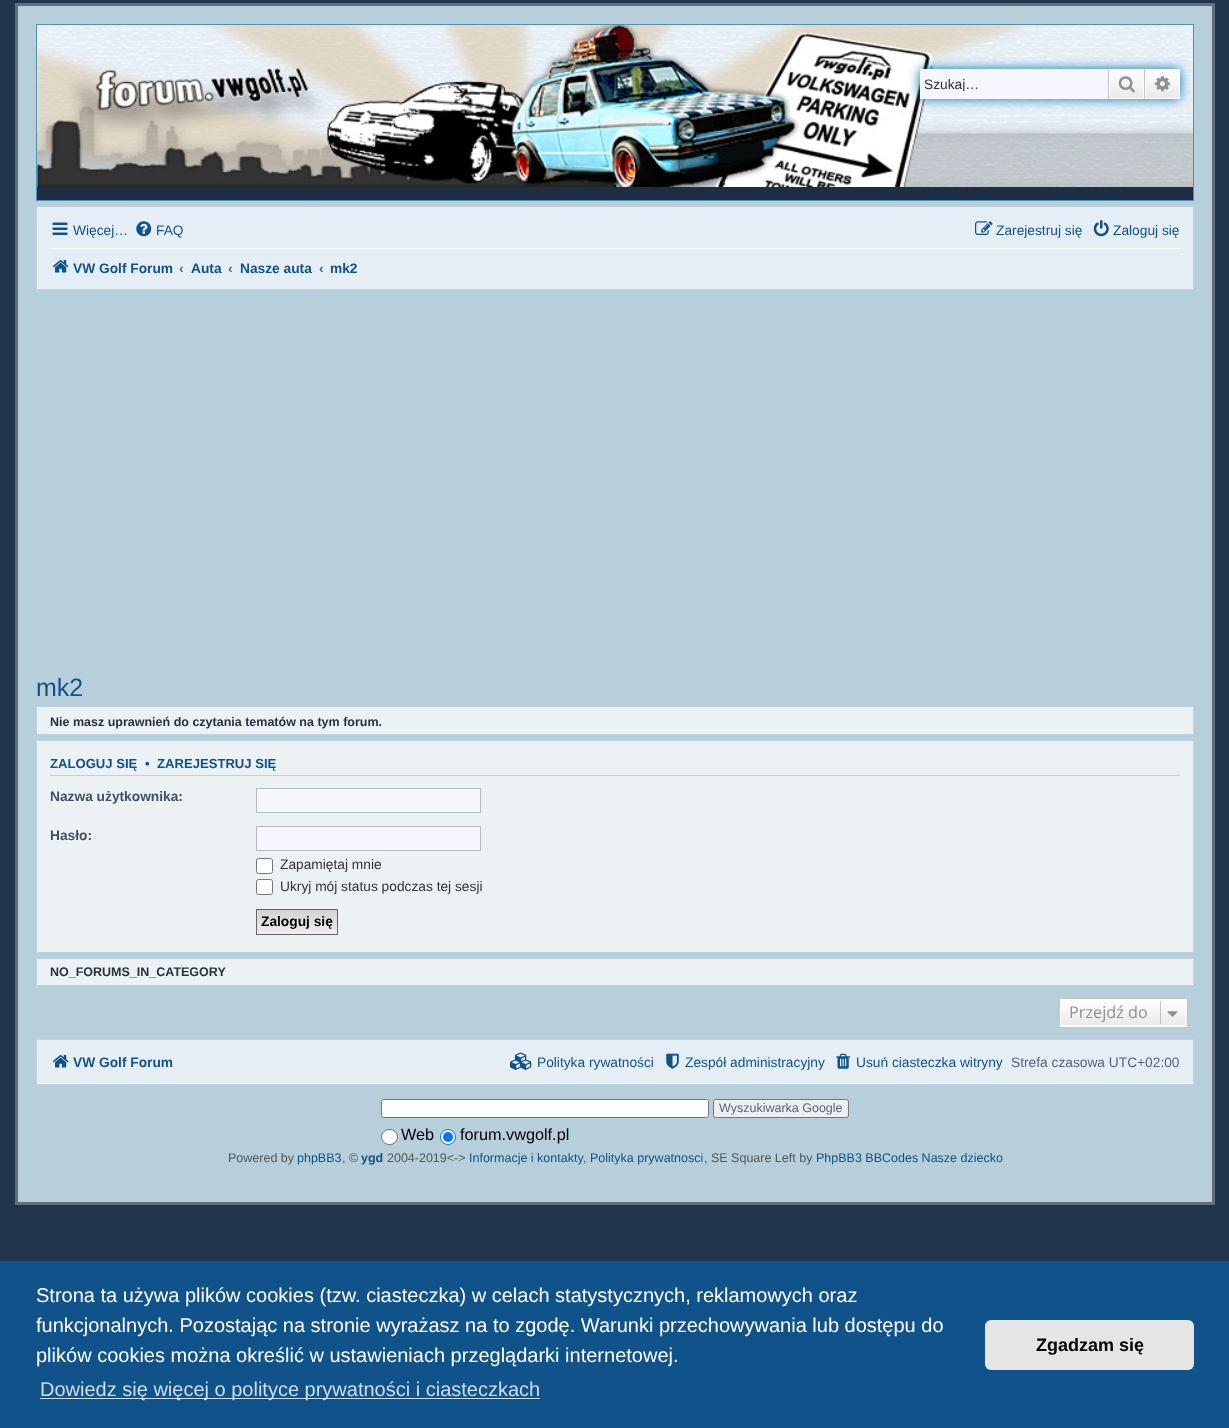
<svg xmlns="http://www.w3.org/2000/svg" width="1229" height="1428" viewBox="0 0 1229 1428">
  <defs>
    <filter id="blur1" x="-50%" y="-200%" width="200%" height="500%"><feGaussianBlur stdDeviation="6"/></filter>
    <clipPath id="clip1"><rect x="924" y="76" width="175" height="15"/></clipPath>
    <linearGradient id="g1" gradientUnits="userSpaceOnUse" x1="1126" y1="69" x2="1126" y2="99"><stop offset="0" stop-color="#ffffff"/><stop offset="1" stop-color="#e9e9e9"/></linearGradient>
    <linearGradient id="g2" gradientUnits="userSpaceOnUse" x1="1163" y1="69" x2="1163" y2="99"><stop offset="0" stop-color="#ffffff"/><stop offset="1" stop-color="#e9e9e9"/></linearGradient>
    <linearGradient id="g3" gradientUnits="userSpaceOnUse" x1="297" y1="910" x2="297" y2="934"><stop offset="0" stop-color="#d2d2d2"/><stop offset="1" stop-color="#efefef"/></linearGradient>
    <linearGradient id="g4" gradientUnits="userSpaceOnUse" x1="1123" y1="999" x2="1123" y2="1026"><stop offset="0" stop-color="#ffffff"/><stop offset="1" stop-color="#e9e9e9"/></linearGradient>
    <linearGradient id="g5" gradientUnits="userSpaceOnUse" x1="1123" y1="1026" x2="1123" y2="1054"><stop offset="0" stop-color="#ffffff"/><stop offset="1" stop-color="#e9e9e9"/></linearGradient>
  </defs>
  <rect width="100%" height="100%" fill="#20354c"/>
  <rect x="16.5" y="4.5" width="1197" height="1199" fill="#b7cfda" stroke="#606e7b" stroke-width="3"/>
  <rect x="37" y="187" width="1156" height="13" fill="#1c2e43"/>
  <image x="37" y="25" width="1156" height="162" href="img1.png"/>
  <rect x="36.5" y="24.5" width="1157" height="176" fill="none" stroke="#4f91b6"/>
  <rect x="920" y="69" width="260" height="30" fill="#0075b0" filter="url(#blur1)"/>
  <rect x="920" y="69" width="188" height="30" fill="#f5f6ff"/>
  <g clip-path="url(#clip1)">
    <text x="924" y="89" font-family="Liberation Sans" font-size="13.75" fill="#333333">Szukaj…</text>
  </g>
  <rect x="1110" y="70" width="33" height="28" fill="url(#g1)"/>
  <rect x="1109.5" y="69.5" width="34" height="29" fill="none" stroke="#ffffff"/>
  <rect x="1144" y="69" width="1" height="30" fill="#c7c3bf"/>
  <rect x="1108" y="69" width="1" height="30" fill="#c7c3bf"/>
  <image x="1118" y="76" width="17" height="17" href="img2.png"/>
  <rect x="1146" y="70" width="33" height="28" fill="url(#g2)"/>
  <rect x="1145.5" y="69.5" width="34" height="29" fill="none" stroke="#ffffff"/>
  <image x="1155" y="76" width="15" height="16" href="img3.png"/>
  <rect x="36.5" y="206.5" width="1157" height="83" fill="#e5eef5" stroke="#bcd4e3"/>
  <image x="52" y="222" width="16" height="13" href="img4.png"/>
  <text x="73" y="235" font-family="Liberation Sans" font-size="13.75" fill="#105289">Więcej…</text>
  <image x="136" y="221" width="16" height="16" href="img5.png"/>
  <text x="156" y="235" font-family="Liberation Sans" font-size="13.75" fill="#105289">FAQ</text>
  <image x="975" y="221" width="18" height="14" href="img6.png"/>
  <text x="996" y="235" font-family="Liberation Sans" font-size="13.75" fill="#105289">Zarejestruj się</text>
  <image x="1093" y="220" width="16" height="17" href="img7.png"/>
  <text x="1113" y="235" font-family="Liberation Sans" font-size="13.75" fill="#105289">Zaloguj się</text>
  <rect x="50" y="248" width="1130" height="1" fill="#ffffff"/>
  <image x="52" y="260" width="17" height="13" href="img8.png"/>
  <text x="73" y="273" font-family="Liberation Sans" font-size="13.75" font-weight="bold" fill="#105289">VW Golf Forum</text>
  <text x="179" y="273" font-family="Liberation Sans" font-size="13.75" font-weight="bold" fill="#536482">‹</text>
  <text x="191" y="273" font-family="Liberation Sans" font-size="13.75" font-weight="bold" fill="#105289">Auta</text>
  <text x="228" y="273" font-family="Liberation Sans" font-size="13.75" font-weight="bold" fill="#536482">‹</text>
  <text x="240" y="273" font-family="Liberation Sans" font-size="13.75" font-weight="bold" fill="#105289">Nasze auta</text>
  <text x="319" y="273" font-family="Liberation Sans" font-size="13.75" font-weight="bold" fill="#536482">‹</text>
  <text x="330" y="273" font-family="Liberation Sans" font-size="13.75" font-weight="bold" fill="#105289">mk2</text>
  <text x="36" y="696" font-family="Liberation Sans" font-size="25" fill="#105289">mk2</text>
  <rect x="36.5" y="706.5" width="1157" height="28" fill="#ecf1f3" stroke="#bcd4e3"/>
  <text x="50" y="726" font-family="Liberation Sans" font-size="12.5" font-weight="bold" fill="#28313f">Nie masz uprawnień do czytania tematów na tym forum.</text>
  <rect x="36.5" y="740.5" width="1157" height="212" fill="#ecf1f3" stroke="#bcd4e3"/>
  <rect x="50" y="775" width="1130" height="1" fill="#cccccc"/>
  <text x="50" y="768" font-family="Liberation Sans" font-size="13.1" font-weight="bold" fill="#105289">ZALOGUJ SIĘ</text>
  <text x="145" y="768" font-family="Liberation Sans" font-size="13.1" font-weight="bold" fill="#115098">•</text>
  <text x="157" y="768" font-family="Liberation Sans" font-size="13.1" font-weight="bold" fill="#105289">ZAREJESTRUJ SIĘ</text>
  <text x="50" y="801" font-family="Liberation Sans" font-size="13.75" font-weight="bold" fill="#425067">Nazwa użytkownika:</text>
  <rect x="256.5" y="788.5" width="224" height="24" fill="#f5f6ff" stroke="#b4bac0"/>
  <text x="50" y="840" font-family="Liberation Sans" font-size="13.75" font-weight="bold" fill="#425067">Hasło:</text>
  <rect x="256.5" y="826.5" width="224" height="24" fill="#f5f6ff" stroke="#b4bac0"/>
  <rect x="256.5" y="858.5" width="16" height="15" rx="2" fill="#ffffff" stroke="#767676"/>
  <text x="280" y="869" font-family="Liberation Sans" font-size="13.75" fill="#333333">Zapamiętaj mnie</text>
  <rect x="256.5" y="879.5" width="16" height="15" rx="2" fill="#ffffff" stroke="#767676"/>
  <text x="280" y="891" font-family="Liberation Sans" font-size="13.75" fill="#333333">Ukryj mój status podczas tej sesji</text>
  <rect x="257" y="910" width="80" height="24" fill="url(#g3)"/>
  <rect x="256.5" y="909.5" width="81" height="25" fill="none" stroke="#666666"/>
  <text x="261" y="926" font-family="Liberation Sans" font-size="13.75" font-weight="bold" fill="#000000">Zaloguj się</text>
  <rect x="36.5" y="958.5" width="1157" height="27" fill="#ecf1f3" stroke="#bcd4e3"/>
  <text x="50" y="976" font-family="Liberation Sans" font-size="12.5" font-weight="bold" fill="#28313f">NO_FORUMS_IN_CATEGORY</text>
  <rect x="1061" y="999" width="126" height="27" fill="url(#g4)"/>
  <rect x="1059" y="1026" width="129" height="1" fill="url(#g5)"/>
  <rect x="1060.5" y="999.5" width="125" height="26" fill="none" stroke="#ffffff"/>
  <rect x="1059.5" y="998.5" width="128" height="29" fill="none" stroke="#c7c3bf"/>
  <text x="1069" y="1018" font-family="Open Sans" font-size="16.25" fill="#8f8f8f">Przejdź do</text>
  <rect x="1160" y="1001" width="1" height="23" fill="#c7c3bf"/>
  <image x="1167" y="1011" width="11" height="6" href="img9.png"/>
  <rect x="36.5" y="1039.5" width="1157" height="45" fill="#e5eef5" stroke="#bcd4e3"/>
  <image x="52" y="1055" width="17" height="13" href="img8.png"/>
  <text x="73" y="1067" font-family="Liberation Sans" font-size="13.75" font-weight="bold" fill="#105289">VW Golf Forum</text>
  <image x="510" y="1052" width="22" height="18" href="img10.png"/>
  <text x="537" y="1067" font-family="Liberation Sans" font-size="13.75" fill="#105289">Polityka rywatności</text>
  <image x="666" y="1053" width="13" height="16" href="img11.png"/>
  <text x="685" y="1067" font-family="Liberation Sans" font-size="13.75" fill="#105289">Zespół administracyjny</text>
  <image x="836" y="1053" width="14" height="16" href="img12.png"/>
  <text x="856" y="1067" font-family="Liberation Sans" font-size="13.75" fill="#105289">Usuń ciasteczka witryny</text>
  <text x="1011" y="1067" font-family="Liberation Sans" font-size="13.75" fill="#536482">Strefa czasowa UTC+02:00</text>
  <rect x="381.5" y="1099.5" width="327" height="18" rx="2" fill="#ffffff" stroke="#767676"/>
  <rect x="713.5" y="1099.5" width="135" height="18" rx="2" fill="#efefef" stroke="#767676"/>
  <text x="719" y="1112" font-family="Liberation Sans" font-size="12.5" fill="#536482">Wyszukiwarka Google</text>
  <rect x="381.5" y="1129.5" width="16" height="15" rx="7.5" fill="#ffffff" stroke="#767676"/>
  <text x="401" y="1140" font-family="Liberation Sans" font-size="16.25" fill="#000000">Web</text>
  <circle cx="448" cy="1137" r="7.5" fill="#ffffff" stroke="#0075ff"/>
  <circle cx="448" cy="1137" r="5" fill="#0075ff"/>
  <text x="460" y="1140" font-family="Liberation Sans" font-size="16.25" fill="#000000">forum.vwgolf.pl</text>
  <text x="228" y="1162" font-family="Liberation Sans" font-size="12.5" fill="#555555">Powered by</text>
  <text x="297" y="1162" font-family="Liberation Sans" font-size="12.5" fill="#105289">phpBB3</text>
  <text x="342" y="1162" font-family="Liberation Sans" font-size="12.5" fill="#555555">, ©</text>
  <text x="361" y="1162" font-family="Liberation Sans" font-size="12.5" font-weight="bold" fill="#105289">ygd</text>
  <text x="387" y="1162" font-family="Liberation Sans" font-size="12.5" fill="#555555">2004-2019&lt;-&gt;</text>
  <text x="469" y="1162" font-family="Liberation Sans" font-size="12.5" fill="#105289">Informacje i kontakty</text>
  <text x="583" y="1162" font-family="Liberation Sans" font-size="12.5" fill="#555555">,</text>
  <text x="590" y="1162" font-family="Liberation Sans" font-size="12.5" fill="#105289">Polityka prywatnosci</text>
  <text x="704" y="1162" font-family="Liberation Sans" font-size="12.5" fill="#555555">, SE Square Left by</text>
  <text x="816" y="1162" font-family="Liberation Sans" font-size="12.5" fill="#105289">PhpBB3 BBCodes Nasze dziecko</text>
  <rect x="0" y="1261" width="1229" height="167" fill="#0f538a"/>
  <text x="36" y="1302" font-family="Liberation Sans" font-size="20" fill="#ffffff">Strona ta używa plików cookies (tzw. ciasteczka) w celach statystycznych, reklamowych oraz</text>
  <text x="36" y="1332" font-family="Liberation Sans" font-size="20" fill="#ffffff">funkcjonalnych. Pozostając na stronie wyrażasz na to zgodę. Warunki przechowywania lub dostępu do</text>
  <text x="36" y="1362" font-family="Liberation Sans" font-size="20" fill="#ffffff">plików cookies można określić w ustawieniach przeglądarki internetowej.</text>
  <rect x="40" y="1398" width="500" height="1" fill="#cfdde8"/>
  <text x="40" y="1396" font-family="Liberation Sans" font-size="20" fill="#cfdde8">Dowiedz się więcej o polityce prywatności i ciasteczkach</text>
  <rect x="985" y="1320" width="209" height="50" rx="6" fill="#e5e5e5"/>
  <text x="1036" y="1351" font-family="Liberation Sans" font-size="18" font-weight="bold" fill="#000000">Zgadzam się</text>
</svg>
